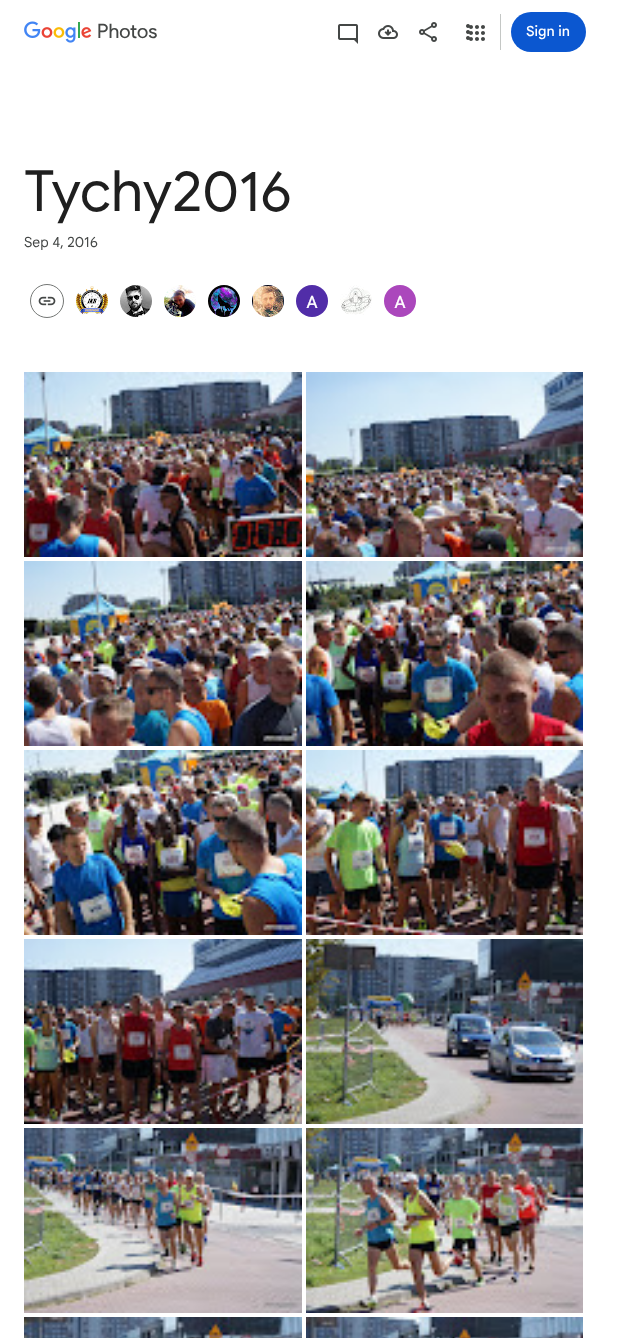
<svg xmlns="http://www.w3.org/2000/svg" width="622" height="1338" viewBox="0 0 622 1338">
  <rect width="100%" height="100%" fill="#ffffff"/>
  <image x="24" y="21" width="68" height="22" href="img1.png"/>
  <text x="97" y="38" font-family="Product Sans" font-size="20" fill="#444746">Photos</text>
  <image x="338" y="24" width="20" height="20" href="img2.png"/>
  <image x="378" y="25" width="20" height="14" href="img3.png"/>
  <image x="419" y="22" width="18" height="20" href="img4.png"/>
  <image x="466" y="24" width="4" height="16" href="img5.png"/>
  <rect x="500" y="14" width="1" height="36" fill="#c4c7c5"/>
  <text x="24" y="211" font-family="Google Sans" font-size="57" fill="#1f1f1f">Tychy2016</text>
  <text x="24" y="247" font-family="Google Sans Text" font-size="14" fill="#444746">Sep 4, 2016</text>
  <circle cx="47" cy="301" r="16.5" fill="none" stroke="#747775"/>
  <image x="38" y="296" width="18" height="10" href="img6.png"/>
  <image x="76" y="286" width="32" height="29" href="img7.png"/>
  <image x="120" y="285" width="32" height="32" href="img8.png"/>
  <image x="164" y="285" width="32" height="32" href="img9.png"/>
  <image x="208" y="285" width="32" height="32" href="img10.png"/>
  <image x="252" y="285" width="32" height="32" href="img11.png"/>
  <image x="296" y="285" width="32" height="32" href="img12.png"/>
  <image x="340" y="285" width="32" height="30" href="img13.png"/>
  <image x="384" y="285" width="32" height="32" href="img14.png"/>
  <image x="24" y="372" width="278" height="185" href="img15.png"/>
  <image x="306" y="372" width="277" height="185" href="img16.png"/>
  <image x="24" y="561" width="278" height="185" href="img17.png"/>
  <image x="306" y="561" width="277" height="185" href="img18.png"/>
  <image x="24" y="750" width="278" height="185" href="img19.png"/>
  <image x="306" y="750" width="277" height="185" href="img20.png"/>
  <image x="24" y="939" width="278" height="185" href="img21.png"/>
  <image x="306" y="939" width="277" height="185" href="img22.png"/>
  <image x="24" y="1128" width="278" height="185" href="img23.png"/>
  <image x="306" y="1128" width="277" height="185" href="img24.png"/>
  <image x="24" y="1317" width="278" height="21" href="img25.png"/>
  <image x="306" y="1317" width="277" height="21" href="img26.png"/>
  <image x="469" y="25" width="16" height="16" href="img27.png"/>
  <rect x="511" y="12" width="75" height="40" rx="20" fill="#0b57d0"/>
  <text x="526" y="36" font-family="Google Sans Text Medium" font-size="14" font-weight="500" fill="#ffffff">Sign in</text>
</svg>
